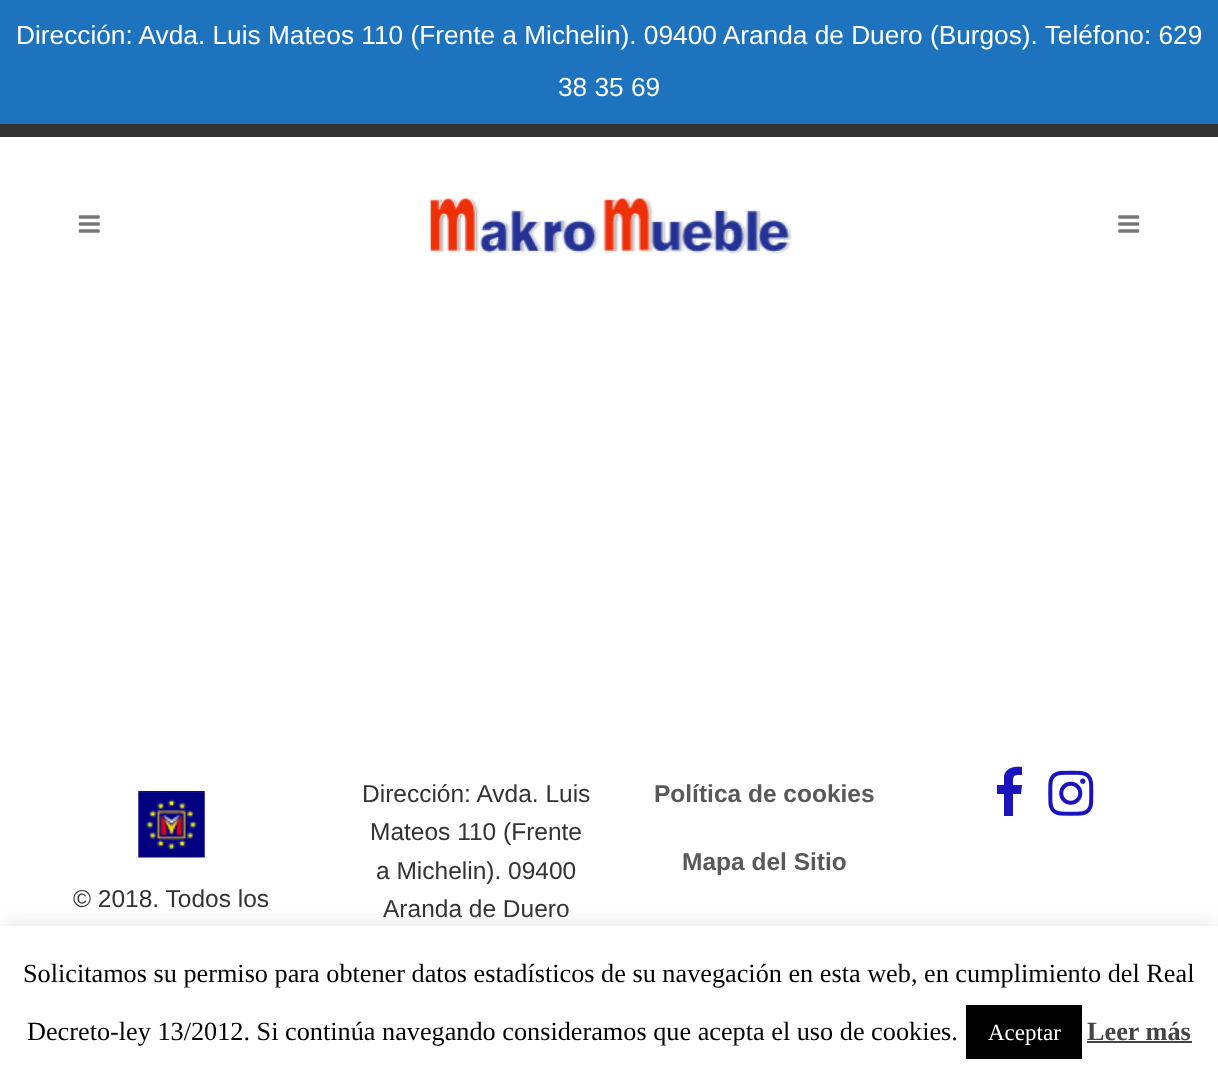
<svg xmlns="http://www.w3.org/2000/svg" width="1218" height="1079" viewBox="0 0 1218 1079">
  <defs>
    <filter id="blur1" x="-50%" y="-200%" width="200%" height="500%"><feGaussianBlur stdDeviation="9"/></filter>
  </defs>
  <rect width="100%" height="100%" fill="#ffffff"/>
  <rect x="0" y="0" width="1218" height="124" fill="#1e73be"/>
  <text x="16" y="44" font-family="Liberation Sans" font-size="26.25" fill="#ffffff">Dirección: Avda. Luis Mateos 110 (Frente a Michelin). 09400 Aranda de Duero (Burgos). Teléfono: 629</text>
  <text x="558" y="96" font-family="Liberation Sans" font-size="26.25" fill="#ffffff">38 35 69</text>
  <rect x="0" y="124" width="1218" height="13" fill="#333333"/>
  <image x="78" y="215" width="22" height="18" href="img1.png"/>
  <image x="429" y="197" width="363" height="57" href="img2.png"/>
  <image x="1118" y="215" width="22" height="18" href="img3.png"/>
  <text x="362" y="802" font-family="Liberation Sans" font-size="24.5" fill="#333333">Dirección: Avda. Luis</text>
  <text x="370" y="840" font-family="Liberation Sans" font-size="24.5" fill="#333333">Mateos 110 (Frente</text>
  <text x="376" y="879" font-family="Liberation Sans" font-size="24.5" fill="#333333">a Michelin). 09400</text>
  <text x="383" y="917" font-family="Liberation Sans" font-size="24.5" fill="#333333">Aranda de Duero</text>
  <text x="654" y="802" font-family="Liberation Sans" font-size="24.5" font-weight="bold" fill="#595959">Política de cookies</text>
  <text x="682" y="870" font-family="Liberation Sans" font-size="24.5" font-weight="bold" fill="#595959">Mapa del Sitio</text>
  <path d="M1022 767V775C1013 775 1013 775 1013 785H1022L1021 794H1013V816H1004V794H997V785H1004V776C1006 767 1015 766 1022 767Z" fill="#1b13bd"/>
  <image x="1048" y="770" width="46" height="46" href="img4.png"/>
  <image x="138" y="791" width="67" height="67" href="img5.png"/>
  <text x="73" y="907" font-family="Liberation Sans" font-size="24.5" fill="#333333">© 2018. Todos los</text>
  <rect x="0" y="924" width="1218" height="154" fill="#acabab" fill-opacity="0.3" filter="url(#blur1)"/>
  <rect x="0" y="926" width="1218" height="153" fill="#ffffff"/>
  <text x="23" y="982" font-family="Liberation Serif" font-size="26.25" fill="#000000">Solicitamos su permiso para obtener datos estadísticos de su navegación en esta web, en cumplimiento del Real</text>
  <text x="27" y="1040" font-family="Liberation Serif" font-size="26.25" fill="#000000">Decreto-ley 13/2012. Si continúa navegando consideramos que acepta el uso de cookies.</text>
  <rect x="966" y="1005" width="116" height="54" fill="#000000"/>
  <text x="988" y="1040" font-family="Liberation Serif" font-size="23" fill="#ffffff">Aceptar</text>
  <text x="1087" y="1040" font-family="Liberation Serif" font-size="26.25" font-weight="bold" fill="#444444">Leer más</text>
  <rect x="1087" y="1041" width="105" height="2" fill="#444444"/>
</svg>
